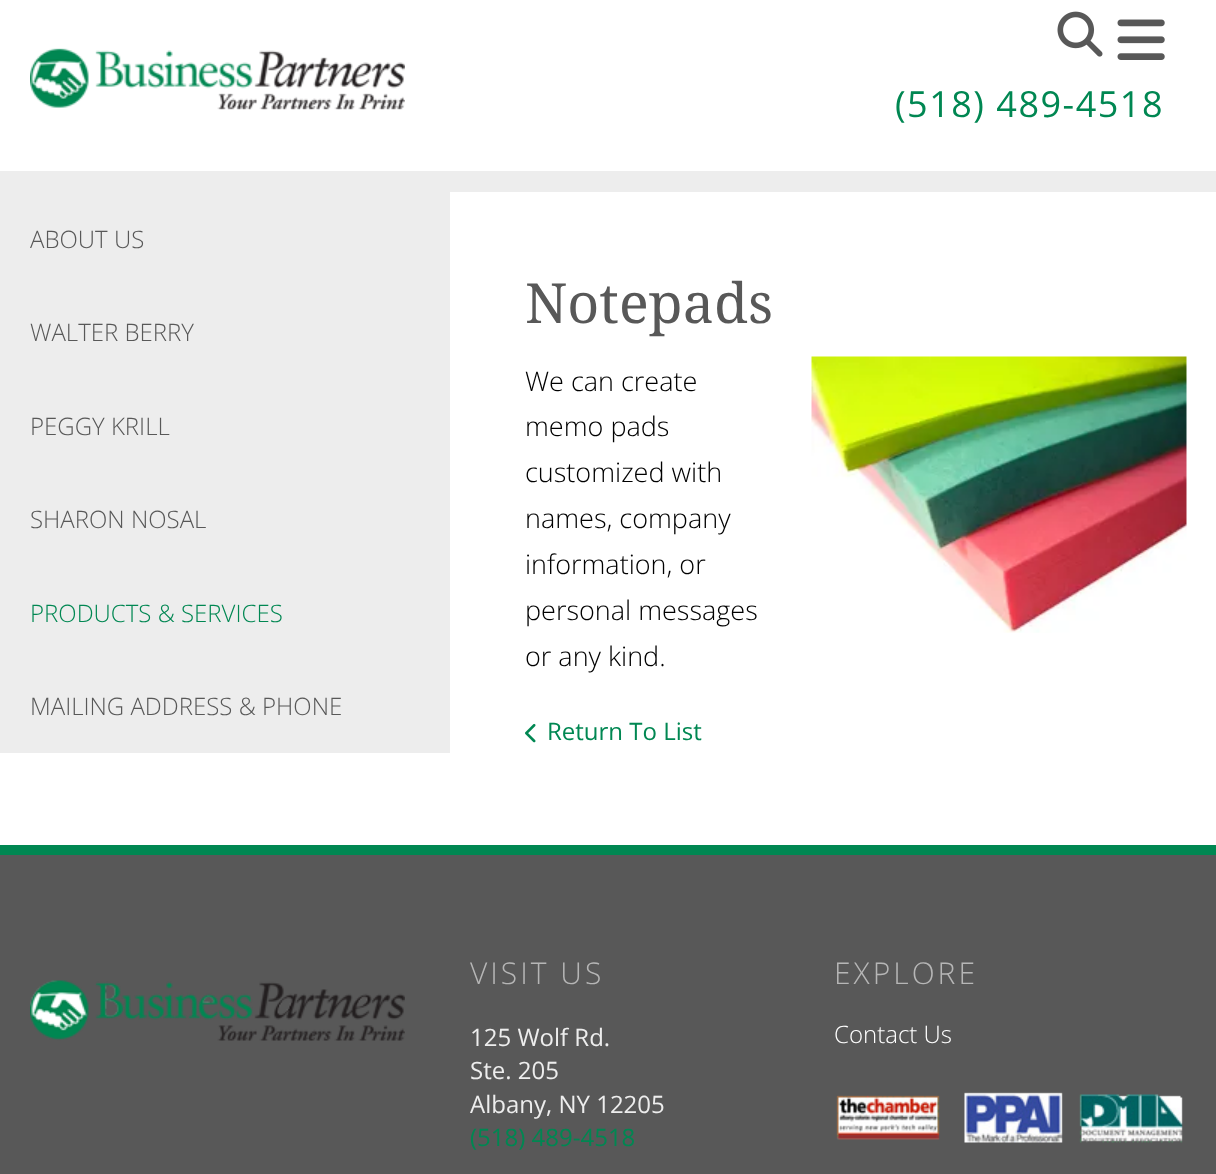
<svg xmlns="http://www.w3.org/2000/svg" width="1216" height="1174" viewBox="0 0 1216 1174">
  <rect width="100%" height="100%" fill="#585858"/>
  <rect x="0" y="0" width="1216" height="171" fill="#ffffff"/>
  <image x="30" y="48" width="375" height="62" href="img1.png"/>
  <image x="1057" y="11" width="46" height="46" href="img2.png"/>
  <image x="1117" y="19" width="48" height="41" href="img3.png"/>
  <text x="895" y="117" font-family="Open Sans" font-size="36" letter-spacing="1.5" fill="#008752">(518) 489-4518</text>
  <rect x="0" y="171" width="1216" height="21" fill="#ededed"/>
  <rect x="0" y="192" width="1216" height="653" fill="#ffffff"/>
  <rect x="0" y="192" width="450" height="561" fill="#ededed"/>
  <text x="30" y="248" font-family="Open Sans" font-size="24" font-weight="300" fill="#585858">ABOUT US</text>
  <text x="30" y="341" font-family="Open Sans" font-size="24" font-weight="300" fill="#585858">WALTER BERRY</text>
  <text x="30" y="435" font-family="Open Sans" font-size="24" font-weight="300" fill="#585858">PEGGY KRILL</text>
  <text x="30" y="528" font-family="Open Sans" font-size="24" font-weight="300" fill="#585858">SHARON NOSAL</text>
  <text x="30" y="622" font-family="Open Sans" font-size="24" font-weight="300" fill="#008752">PRODUCTS &amp; SERVICES</text>
  <text x="30" y="715" font-family="Open Sans" font-size="24" font-weight="300" fill="#585858">MAILING ADDRESS &amp; PHONE</text>
  <text x="525" y="323" font-family="Noto Serif" font-size="55.5" fill="#585858">Notepads</text>
  <text x="525" y="391" font-family="Open Sans" font-size="27" font-weight="300" fill="#000000">We can create</text>
  <text x="525" y="436" font-family="Open Sans" font-size="27" font-weight="300" fill="#000000">memo pads</text>
  <text x="525" y="482" font-family="Open Sans" font-size="27" font-weight="300" fill="#000000">customized with</text>
  <text x="525" y="528" font-family="Open Sans" font-size="27" font-weight="300" fill="#000000">names, company</text>
  <text x="525" y="574" font-family="Open Sans" font-size="27" font-weight="300" fill="#000000">information, or</text>
  <text x="525" y="620" font-family="Open Sans" font-size="27" font-weight="300" fill="#000000">personal messages</text>
  <text x="525" y="666" font-family="Open Sans" font-size="27" font-weight="300" fill="#000000">or any kind.</text>
  <image x="811" y="356" width="376" height="277" href="img4.png"/>
  <image x="525" y="723" width="11" height="20" href="img5.png"/>
  <text x="547" y="740" font-family="Open Sans" font-size="24" fill="#008752">Return To List</text>
  <rect x="0" y="845" width="1216" height="10" fill="#008752"/>
  <image x="30" y="980" width="375" height="61" href="img6.png"/>
  <text x="470" y="984" font-family="Open Sans" font-size="30" font-weight="300" letter-spacing="3" fill="#b6b6b6">VISIT US</text>
  <text x="470" y="1046" font-family="Open Sans" font-size="24" fill="#ededed">125 Wolf Rd.</text>
  <text x="470" y="1079" font-family="Open Sans" font-size="24" fill="#ededed">Ste. 205</text>
  <text x="470" y="1113" font-family="Open Sans" font-size="24" fill="#ededed">Albany, NY 12205</text>
  <text x="470" y="1146" font-family="Open Sans" font-size="24" fill="#008752">(518) 489-4518</text>
  <text x="834" y="984" font-family="Open Sans" font-size="30" font-weight="300" letter-spacing="3" fill="#b6b6b6">EXPLORE</text>
  <text x="834" y="1043" font-family="Open Sans" font-size="24" font-weight="300" fill="#ffffff">Contact Us</text>
  <image x="836" y="1092" width="347" height="51" href="img7.png"/>
</svg>
